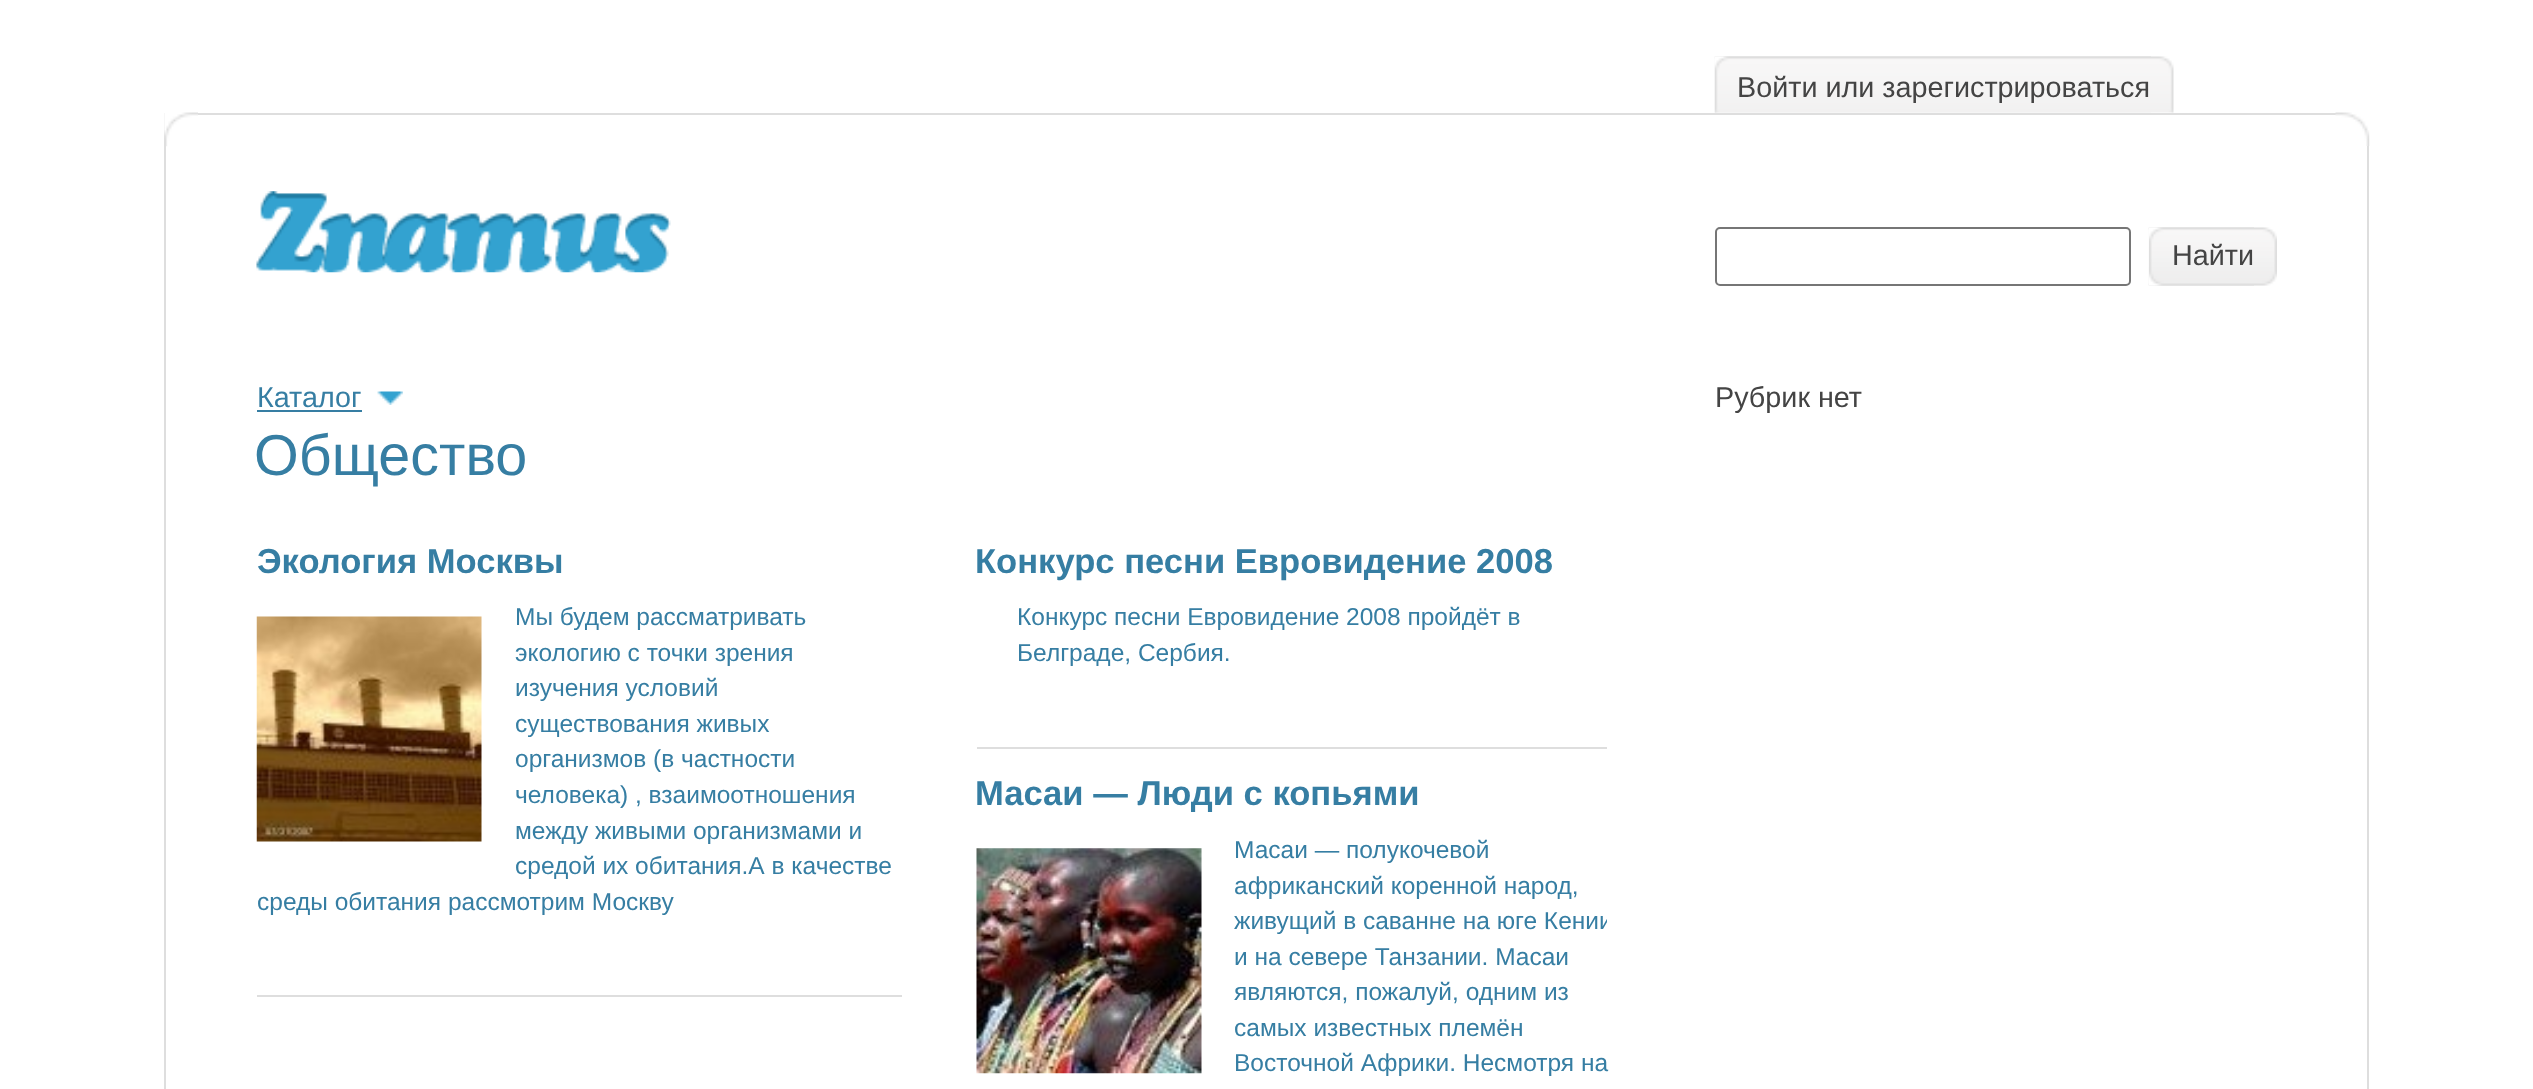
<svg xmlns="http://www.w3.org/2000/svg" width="2533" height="1089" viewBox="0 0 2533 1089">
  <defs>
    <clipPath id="clip1"><rect x="257" y="376" width="1350" height="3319"/></clipPath>
  </defs>
  <rect width="100%" height="100%" fill="#ffffff"/>
  <rect x="198" y="113" width="2138" height="2" fill="#dedede"/>
  <rect x="2367" y="146" width="2" height="943" fill="#dedede"/>
  <rect x="164" y="113" width="2" height="976" fill="#dedede"/>
  <image x="1714" y="56" width="460" height="57" href="img1.png"/>
  <image x="1714" y="56" width="437" height="57" href="img2.png"/>
  <text x="1737" y="97" font-family="Liberation Sans" font-size="28.75" fill="#444444">Войти или зарегистрироваться</text>
  <image x="256" y="191" width="415" height="82" href="img3.png"/>
  <rect x="1716" y="228" width="414" height="57" rx="4" fill="none" stroke="#767676" stroke-width="2"/>
  <image x="2148" y="227" width="129" height="59" href="img4.png"/>
  <image x="2149" y="227" width="105" height="59" href="img5.png"/>
  <text x="2172" y="265" font-family="Liberation Sans" font-size="28.75" fill="#444444">Найти</text>
  <image x="164" y="112" width="34" height="35" href="img6.png"/>
  <image x="2335" y="112" width="35" height="34" href="img7.png"/>
  <image x="377" y="391" width="26" height="14" href="img8.png"/>
  <text x="257" y="407" font-family="Liberation Sans" font-size="28.75" fill="#367ea3">Каталог</text>
  <rect x="257" y="410" width="105" height="2" fill="#367ea3"/>
  <text x="254" y="475" font-family="Liberation Sans" font-size="57.5" fill="#367ea3">Общество</text>
  <rect x="257" y="995" width="645" height="2" fill="#dedede"/>
  <text x="257" y="573" font-family="Liberation Sans" font-size="34.6" font-weight="bold" fill="#367ea3">Экология Москвы</text>
  <text x="515" y="625" font-family="Liberation Sans" font-size="24.5" fill="#367ea3">Мы будем рассматривать</text>
  <text x="515" y="661" font-family="Liberation Sans" font-size="24.5" fill="#367ea3">экологию с точки зрения</text>
  <text x="515" y="696" font-family="Liberation Sans" font-size="24.5" fill="#367ea3">изучения условий</text>
  <text x="515" y="732" font-family="Liberation Sans" font-size="24.5" fill="#367ea3">существования живых</text>
  <text x="515" y="767" font-family="Liberation Sans" font-size="24.5" fill="#367ea3">организмов (в частности</text>
  <text x="515" y="803" font-family="Liberation Sans" font-size="24.5" fill="#367ea3">человека) , взаимоотношения</text>
  <text x="515" y="839" font-family="Liberation Sans" font-size="24.5" fill="#367ea3">между живыми организмами и</text>
  <text x="515" y="874" font-family="Liberation Sans" font-size="24.5" fill="#367ea3">средой их обитания.А в качестве</text>
  <text x="257" y="910" font-family="Liberation Sans" font-size="24.5" fill="#367ea3">среды обитания рассмотрим Москву</text>
  <image x="256" y="616" width="226" height="226" href="img9.png"/>
  <rect x="977" y="747" width="630" height="2" fill="#dedede"/>
  <text x="975" y="573" font-family="Liberation Sans" font-size="34.6" font-weight="bold" fill="#367ea3">Конкурс песни Евровидение 2008</text>
  <text x="1017" y="625" font-family="Liberation Sans" font-size="24.5" fill="#367ea3">Конкурс песни Евровидение 2008 пройдёт в</text>
  <text x="1017" y="661" font-family="Liberation Sans" font-size="24.5" fill="#367ea3">Белграде, Сербия.</text>
  <text x="975" y="805" font-family="Liberation Sans" font-size="34.6" font-weight="bold" fill="#367ea3">Масаи — Люди с копьями</text>
  <image x="976" y="848" width="226" height="226" href="img10.png"/>
  <text x="1234" y="858" font-family="Liberation Sans" font-size="24.5" fill="#367ea3">Масаи — полукочевой</text>
  <text x="1234" y="894" font-family="Liberation Sans" font-size="24.5" fill="#367ea3">африканский коренной народ,</text>
  <g clip-path="url(#clip1)">
    <text x="1234" y="929" font-family="Liberation Sans" font-size="24.5" fill="#367ea3">живущий в саванне на юге Кении</text>
  </g>
  <text x="1234" y="965" font-family="Liberation Sans" font-size="24.5" fill="#367ea3">и на севере Танзании. Масаи</text>
  <text x="1234" y="1000" font-family="Liberation Sans" font-size="24.5" fill="#367ea3">являются, пожалуй, одним из</text>
  <text x="1234" y="1036" font-family="Liberation Sans" font-size="24.5" fill="#367ea3">самых известных племён</text>
  <text x="1234" y="1071" font-family="Liberation Sans" font-size="24.5" fill="#367ea3">Восточной Африки. Несмотря на</text>
  <text x="1715" y="407" font-family="Liberation Sans" font-size="28.75" fill="#444444">Рубрик нет</text>
</svg>
